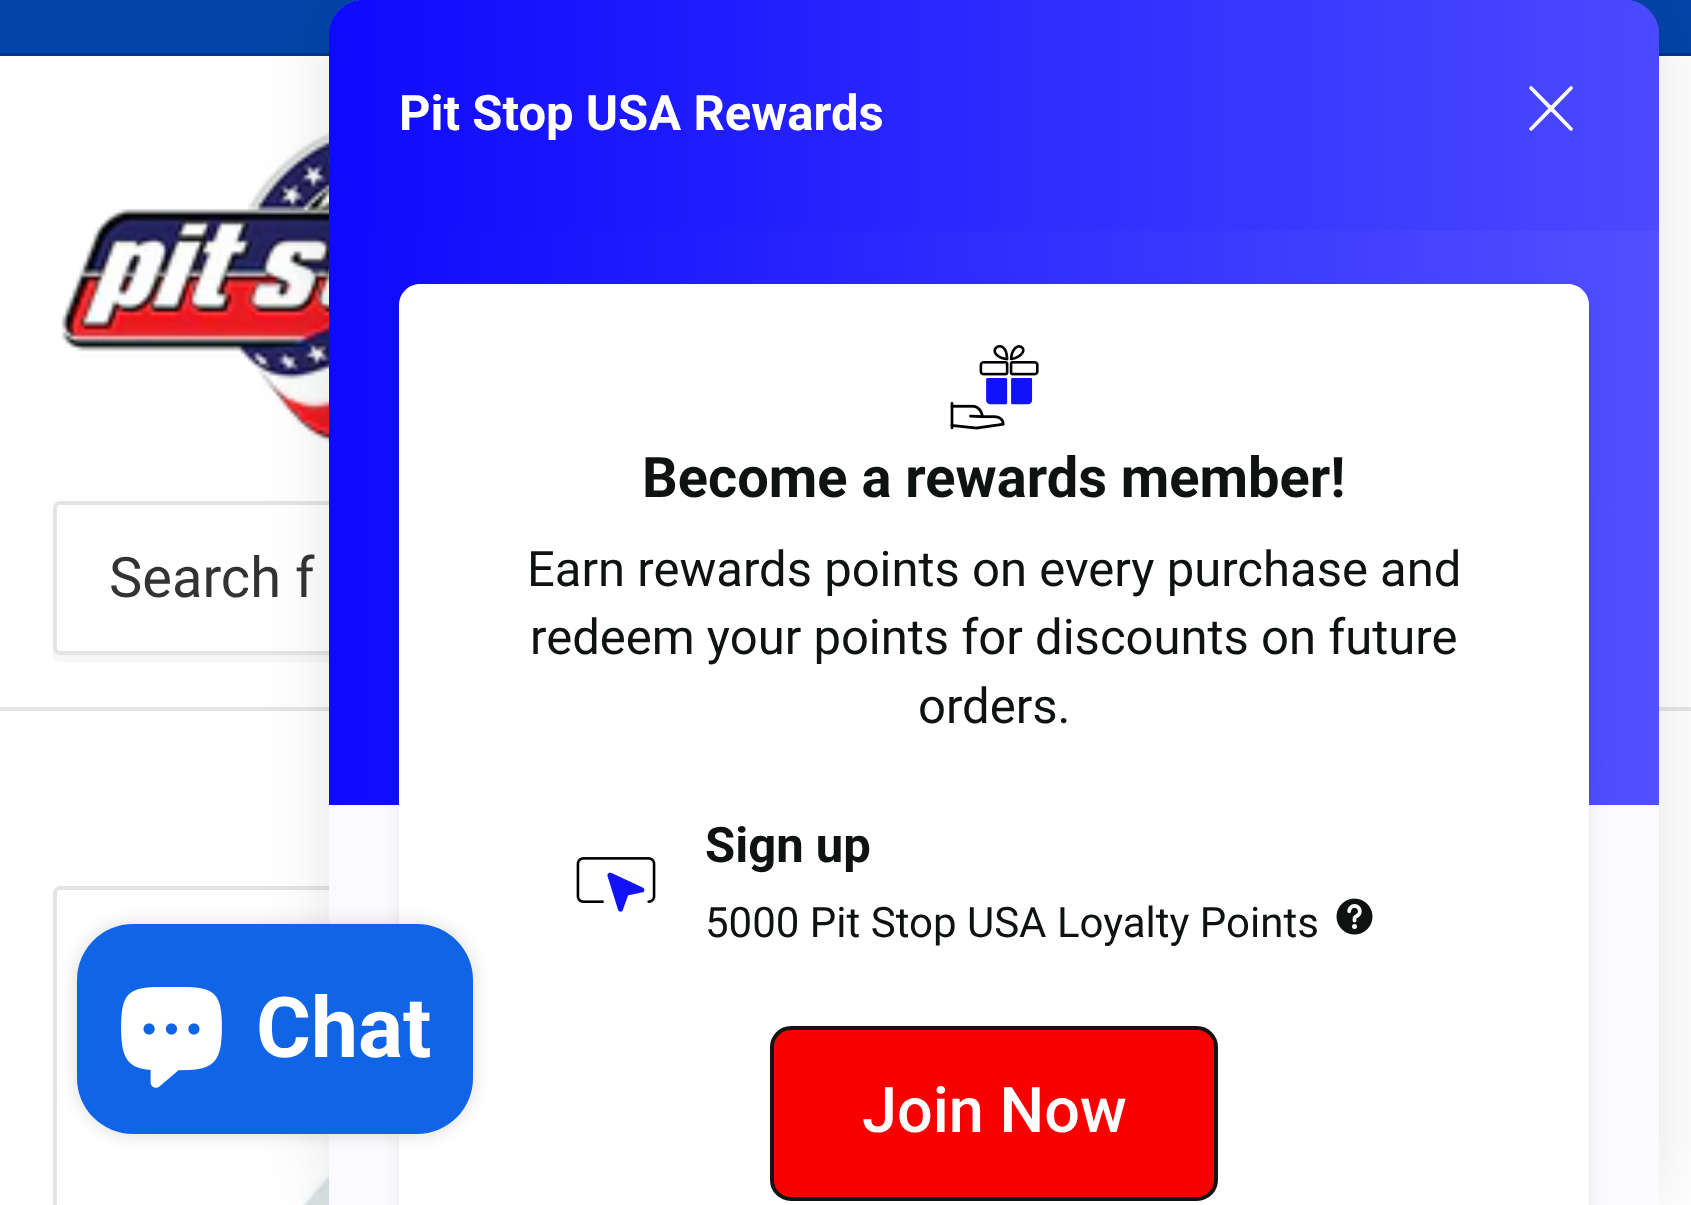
<svg xmlns="http://www.w3.org/2000/svg" width="1691" height="1205" viewBox="0 0 1691 1205">
  <defs>
    <filter id="blur1" x="-50%" y="-200%" width="200%" height="500%"><feGaussianBlur stdDeviation="35"/></filter>
    <linearGradient id="g1" gradientUnits="userSpaceOnUse" x1="329" y1="368" x2="1659" y2="367"><stop offset="0" stop-color="#0e0afd"/><stop offset="1" stop-color="#5150ff"/></linearGradient>
    <linearGradient id="g2" gradientUnits="userSpaceOnUse" x1="329" y1="116" x2="1659" y2="115"><stop offset="0" stop-color="#0e0afd" stop-opacity="0.9"/><stop offset="1" stop-color="#5150ff" stop-opacity="0.9"/></linearGradient>
    <filter id="blur2" x="-50%" y="-200%" width="200%" height="500%"><feGaussianBlur stdDeviation="10.5"/></filter>
    <filter id="blur3" x="-50%" y="-200%" width="200%" height="500%"><feGaussianBlur stdDeviation="9"/></filter>
  </defs>
  <rect width="100%" height="100%" fill="#ffffff"/>
  <rect x="0" y="0" width="1691" height="53" fill="#0244a9"/>
  <rect x="0" y="53" width="1691" height="3" fill="#023687"/>
  <rect x="0" y="707" width="1691" height="4" fill="#e4e4e4"/>
  <image x="61" y="131" width="268" height="311" href="img1.png"/>
  <path d="M53 650V655C53 659 56 662 60 662H1635C1639 662 1642 659 1642 655V515V512V648C1642 651 1638 654 1634 654H60C57 654 54 653 53 650Z" fill="#f7f7f7"/>
  <rect x="55" y="503" width="1585" height="150" rx="5" fill="#ffffff" stroke="#e4e4e4" stroke-width="4"/>
  <text x="109" y="597" font-family="Roboto" font-size="56" fill="#333333">Search f</text>
  <rect x="55" y="888" width="1585" height="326" rx="5" fill="none" stroke="#e4e4e4" stroke-width="4"/>
  <image x="301" y="1134" width="28" height="71" href="img6.png"/>
  <rect x="329" y="0" width="1330" height="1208" rx="35" fill="#000000" fill-opacity="0.1" filter="url(#blur1)"/>
  <path d="M364 0H1624C1643.5 0 1659 15.5 1659 35V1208H329V35C329 15.5 344.5 0 364 0Z" fill="#fbfbfd"/>
  <path d="M364 0H1624C1643.5 0 1659 15.5 1659 35V805H329V35C329 15.5 344.5 0 364 0Z" fill="url(#g1)"/>
  <path d="M364 0H1624C1643.5 0 1659 15.5 1659 35V231H329V35C329 15.5 344.5 0 364 0Z" fill="#0e0afd" fill-opacity="0.9"/>
  <path d="M364 0H1624C1643.5 0 1659 15.5 1659 35V231H329V35C329 15.5 344.5 0 364 0Z" fill="url(#g2)"/>
  <text x="399" y="130" font-family="Roboto" font-size="49" font-weight="bold" fill="#ffffff">Pit Stop USA Rewards</text>
  <image x="1529" y="86" width="44" height="45" href="img2.png"/>
  <rect x="403" y="294" width="1183" height="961" rx="18" fill="#000000" fill-opacity="0.1" filter="url(#blur2)"/>
  <path d="M420 284H1568C1579.5 284 1589 293.5 1589 305V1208H399V305C399 293.5 408.5 284 420 284Z" fill="#ffffff"/>
  <image x="950" y="344" width="89" height="86" href="img3.png"/>
  <text x="642" y="497" font-family="Roboto" font-size="56" font-weight="bold" fill="#0e1311">Become a rewards member!</text>
  <text x="527" y="586" font-family="Roboto" font-size="49" fill="#0e1311">Earn rewards points on every purchase and</text>
  <text x="530" y="654" font-family="Roboto" font-size="49" fill="#0e1311">redeem your points for discounts on future</text>
  <text x="918" y="723" font-family="Roboto" font-size="49" fill="#0e1311">orders.</text>
  <image x="576" y="857" width="80" height="55" href="img4.png"/>
  <text x="705" y="862" font-family="Roboto" font-size="49" font-weight="bold" fill="#0e1311">Sign up</text>
  <text x="705" y="937" font-family="Roboto" font-size="42" fill="#0e1311">5000 Pit Stop USA Loyalty Points</text>
  <image x="1336" y="898" width="37" height="37" href="img5.png"/>
  <rect x="772" y="1028" width="444" height="171" rx="19" fill="#fa0101" stroke="#141414" stroke-width="4"/>
  <text x="862" y="1132" font-family="Roboto" font-size="63" font-weight="500" fill="#ffffff">Join Now</text>
  <rect x="77" y="924" width="396" height="210" rx="56" fill="#000000" fill-opacity="0.15" filter="url(#blur3)"/>
  <rect x="77" y="924" width="396" height="210" rx="56" fill="#1064e6"/>
  <image x="121" y="987" width="101" height="101" href="img7.png"/>
  <text x="256" y="1057" font-family="Roboto" font-size="84" font-weight="bold" fill="#ffffff">Chat</text>
</svg>
